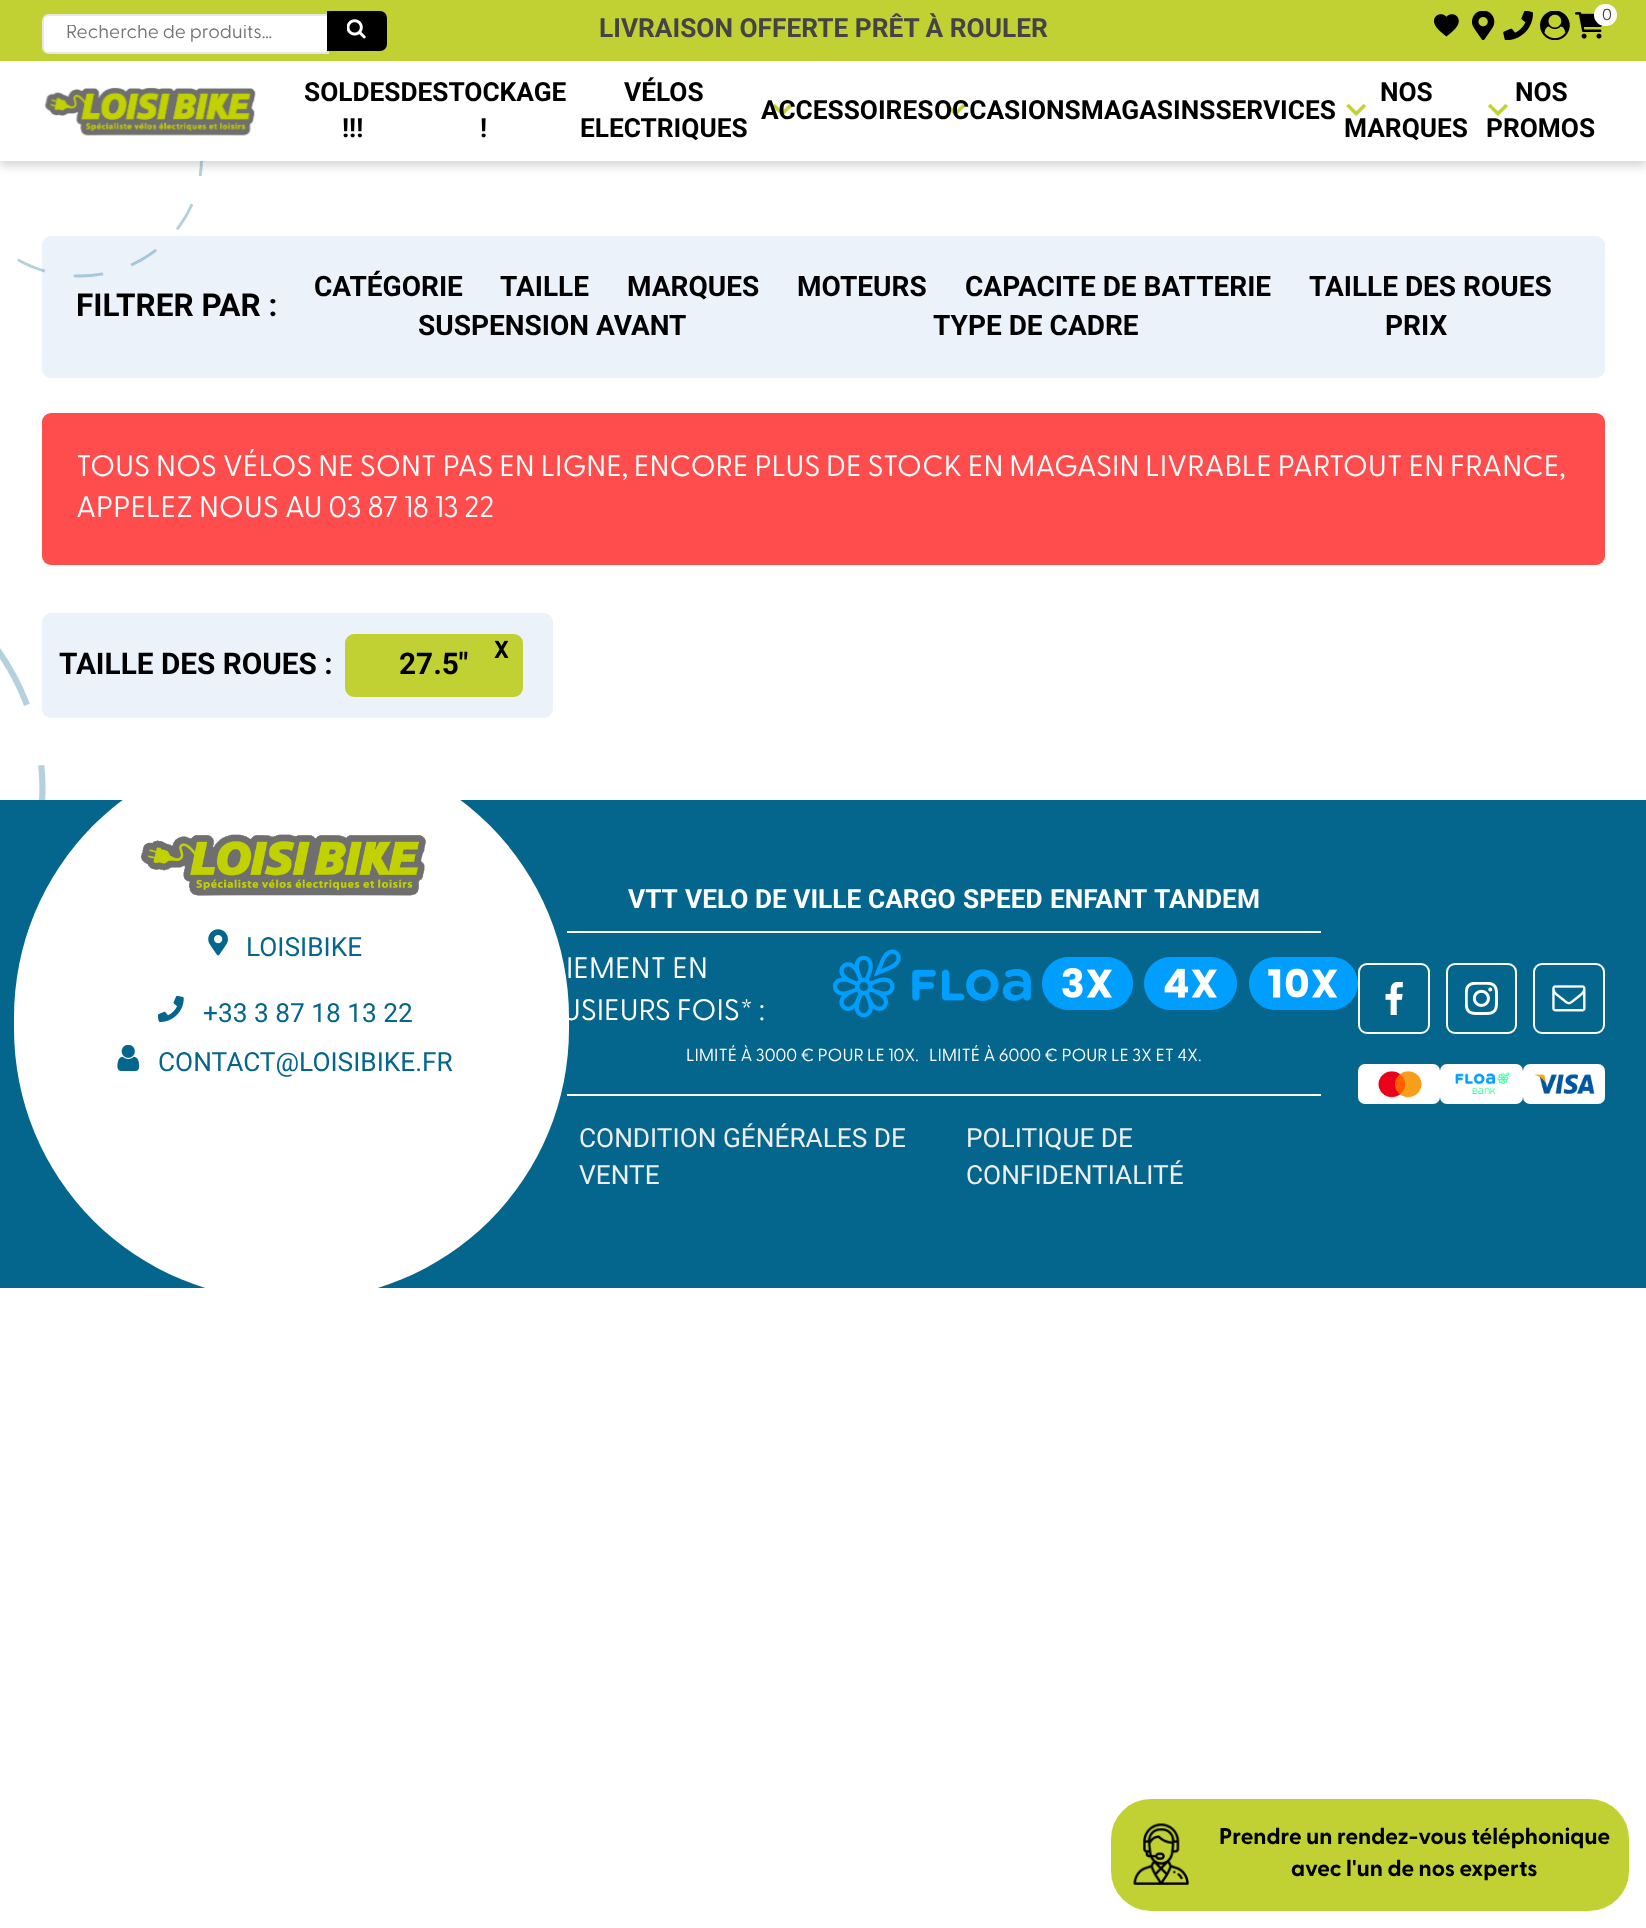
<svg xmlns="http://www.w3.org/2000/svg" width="1646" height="1928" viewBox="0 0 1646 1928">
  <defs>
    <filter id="blur1" x="-50%" y="-200%" width="200%" height="500%"><feGaussianBlur stdDeviation="5"/></filter>
    <clipPath id="clip1"><rect x="67" y="25" width="253" height="19"/></clipPath>
    <clipPath id="clip2"><rect x="0" y="800" width="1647" height="488"/></clipPath>
  </defs>
  <rect width="100%" height="100%" fill="#ffffff"/>
  <rect x="42" y="236" width="1563" height="142" rx="9" fill="#ebf2fa"/>
  <path d="M79.5 41C147 41 201.5 93.5 201.5 158.5C201.5 223.5 147 276 79.5 276C12.5 276-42.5 223.5-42.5 158.5C-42.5 93.5 12.5 41 79.5 41Z" fill="none" stroke="#05668d" stroke-opacity="0.3" stroke-width="2.9" stroke-dasharray="29.38 29.38"/>
  <rect x="0" y="5" width="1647" height="161" fill="#000000" fill-opacity="0.16" filter="url(#blur1)"/>
  <rect x="0" y="61" width="1646" height="100" fill="#ffffff"/>
  <rect x="0" y="0" width="1646" height="61" fill="#c1d133"/>
  <path d="M49 15H328V53H49C45.5 53 43 50.5 43 47V21C43 17.5 45.5 15 49 15Z" fill="#ffffff" stroke="#e7e7e7" stroke-width="2"/>
  <g clip-path="url(#clip1)">
    <text x="66" y="38" font-family="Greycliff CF" font-size="19.25" fill="#757575">Recherche de produits…</text>
  </g>
  <path d="M328 12H380C383.5 12 386 14.5 386 18V44C386 47.5 383.5 50 380 50H328Z" fill="#000000" stroke="#000000" stroke-width="2"/>
  <image x="347" y="19" width="19" height="20" href="img1.png"/>
  <text x="599" y="37" font-family="Roboto" font-size="26.25" font-weight="bold" fill="#444444">LIVRAISON OFFERTE PRÊT À ROULER</text>
  <image x="1434" y="14" width="25" height="23" href="img2.png"/>
  <image x="1472" y="11" width="23" height="29" href="img3.png"/>
  <image x="1503" y="11" width="30" height="29" href="img4.png"/>
  <image x="1540" y="11" width="30" height="29" href="img5.png"/>
  <image x="1575" y="12" width="27" height="27" href="img6.png"/>
  <rect x="1594" y="4" width="23" height="22" rx="11" fill="#ffffff"/>
  <text x="1602" y="20" font-family="Greycliff CF" font-size="16" fill="#444444">0</text>
  <image x="44" y="87" width="212" height="49" href="img7.png"/>
  <text x="304" y="101" font-family="Roboto" font-size="26.25" font-weight="bold" fill="#000000">SOLDESDESTOCKAGE</text>
  <text x="342" y="137" font-family="Roboto" font-size="26.25" font-weight="bold" fill="#000000">!!!</text>
  <text x="624" y="101" font-family="Roboto" font-size="26.25" font-weight="bold" fill="#000000">VÉLOS</text>
  <text x="580" y="137" font-family="Roboto" font-size="26.25" font-weight="bold" fill="#000000">ELECTRIQUES</text>
  <image x="772" y="103" width="21" height="14" href="img8.png"/>
  <text x="761" y="119" font-family="Roboto" font-size="26.25" font-weight="bold" fill="#000000">ACCESSOIRES</text>
  <image x="945" y="103" width="21" height="14" href="img9.png"/>
  <text x="934" y="119" font-family="Roboto" font-size="26.25" font-weight="bold" fill="#000000">OCCASIONSMAGASINSSERVICES</text>
  <text x="1380" y="101" font-family="Roboto" font-size="26.25" font-weight="bold" fill="#000000">NOS</text>
  <text x="1344" y="137" font-family="Roboto" font-size="26.25" font-weight="bold" fill="#000000">MARQUES</text>
  <image x="1487" y="103" width="22" height="14" href="img10.png"/>
  <text x="1515" y="101" font-family="Roboto" font-size="26.25" font-weight="bold" fill="#000000">NOS</text>
  <text x="1486" y="137" font-family="Roboto" font-size="26.25" font-weight="bold" fill="#000000">PROMOS</text>
  <image x="1346" y="103" width="21" height="14" href="img8.png"/>
  <text x="480" y="137" font-family="Roboto" font-size="26.25" font-weight="bold" fill="#000000">!</text>
  <rect x="42" y="613" width="511" height="105" rx="9" fill="#ebf2fa"/>
  <rect x="0" y="800" width="1646" height="488" fill="#05668d"/>
  <path d="M-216 541C-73.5 541 42.5 652.5 42.5 790C42.5 927.5-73.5 1039.5-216 1039.5C-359 1039.5-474.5 927.5-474.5 790C-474.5 652.5-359 541-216 541Z" fill="none" stroke="#05668d" stroke-opacity="0.3" stroke-width="6.2" stroke-dasharray="62.29 62.29"/>
  <text x="76" y="316" font-family="Roboto" font-size="31.5" font-weight="bold" fill="#000000">FILTRER PAR :</text>
  <text x="314" y="296" font-family="Roboto" font-size="28" font-weight="bold" fill="#000000">CATÉGORIE</text>
  <text x="500" y="296" font-family="Roboto" font-size="28" font-weight="bold" fill="#000000">TAILLE</text>
  <text x="627" y="296" font-family="Roboto" font-size="28" font-weight="bold" fill="#000000">MARQUES</text>
  <text x="797" y="296" font-family="Roboto" font-size="28" font-weight="bold" fill="#000000">MOTEURS</text>
  <text x="965" y="296" font-family="Roboto" font-size="28" font-weight="bold" fill="#000000">CAPACITE DE BATTERIE</text>
  <text x="1309" y="296" font-family="Roboto" font-size="28" font-weight="bold" fill="#000000">TAILLE DES ROUES</text>
  <text x="418" y="335" font-family="Roboto" font-size="28" font-weight="bold" fill="#000000">SUSPENSION AVANT</text>
  <text x="933" y="335" font-family="Roboto" font-size="28" font-weight="bold" fill="#000000">TYPE DE CADRE</text>
  <text x="1385" y="335" font-family="Roboto" font-size="28" font-weight="bold" fill="#000000">PRIX</text>
  <rect x="42" y="413" width="1563" height="152" rx="9" fill="#ff4d4d"/>
  <text x="76" y="476" font-family="Greycliff CF" font-size="29.75" fill="#ffffff">TOUS NOS VÉLOS NE SONT PAS EN LIGNE, ENCORE PLUS DE STOCK EN MAGASIN LIVRABLE PARTOUT EN FRANCE,</text>
  <text x="76" y="517" font-family="Greycliff CF" font-size="29.75" fill="#ffffff">APPELEZ NOUS AU 03 87 18 13 22</text>
  <text x="59" y="674" font-family="Roboto" font-size="29.75" font-weight="bold" fill="#000000">TAILLE DES ROUES :</text>
  <rect x="346" y="635" width="176" height="61" rx="8" fill="#c1d133" stroke="#c1d133" stroke-width="2"/>
  <image x="494" y="640" width="15" height="18" href="img11.png"/>
  <text x="399" y="674" font-family="Roboto" font-size="29.75" font-weight="bold" fill="#000000">27.5"</text>
  <rect x="567" y="931" width="754" height="2" fill="#ffffff"/>
  <rect x="567" y="1094" width="754" height="2" fill="#ffffff"/>
  <g clip-path="url(#clip2)">
    <rect x="14" y="746" width="555" height="554" rx="271" fill="#ffffff"/>
  </g>
  <image x="141" y="834" width="285" height="62" href="img12.png"/>
  <image x="208" y="929" width="20" height="27" href="img13.png"/>
  <text x="246" y="956" font-family="Roboto" font-size="26.25" fill="#05668d">LOISIBIKE</text>
  <image x="158" y="996" width="26" height="26" href="img14.png"/>
  <text x="203" y="1022" font-family="Roboto" font-size="26.25" fill="#05668d">+33 3 87 18 13 22</text>
  <image x="117" y="1045" width="23" height="26" href="img15.png"/>
  <text x="158" y="1071" font-family="Roboto" font-size="26.25" fill="#05668d">CONTACT@LOISIBIKE.FR</text>
  <text x="628" y="908" font-family="Roboto" font-size="26.25" font-weight="bold" fill="#ffffff">VTT</text>
  <text x="685" y="908" font-family="Roboto" font-size="26.25" font-weight="bold" fill="#ffffff">VELO DE VILLE</text>
  <text x="868" y="908" font-family="Roboto" font-size="26.25" font-weight="bold" fill="#ffffff">CARGO</text>
  <text x="963" y="908" font-family="Roboto" font-size="26.25" font-weight="bold" fill="#ffffff">SPEED</text>
  <text x="1050" y="908" font-family="Roboto" font-size="26.25" font-weight="bold" fill="#ffffff">ENFANT</text>
  <text x="1154" y="908" font-family="Roboto" font-size="26.25" font-weight="bold" fill="#ffffff">TANDEM</text>
  <text x="566" y="978" font-family="Greycliff CF" font-size="29.75" fill="#ffffff">IEMENT EN</text>
  <text x="562" y="1020" font-family="Greycliff CF" font-size="29.75" fill="#ffffff">USIEURS FOIS* :</text>
  <image x="833" y="949" width="525" height="69" href="img16.png"/>
  <text x="686" y="1061" font-family="Greycliff CF" font-size="17.5" fill="#ffffff">LIMITÉ À 3000 € POUR LE 10X.</text>
  <text x="929" y="1061" font-family="Greycliff CF" font-size="17.5" fill="#ffffff">LIMITÉ À 6000 € POUR LE 3X ET 4X.</text>
  <text x="579" y="1147" font-family="Roboto" font-size="26.25" fill="#eeeeee">CONDITION GÉNÉRALES DE</text>
  <text x="579" y="1184" font-family="Roboto" font-size="26.25" fill="#eeeeee">VENTE</text>
  <text x="966" y="1147" font-family="Roboto" font-size="26.25" fill="#eeeeee">POLITIQUE DE</text>
  <text x="966" y="1184" font-family="Roboto" font-size="26.25" fill="#eeeeee">CONFIDENTIALITÉ</text>
  <rect x="1359" y="964" width="70" height="69" rx="8" fill="none" stroke="#ffffff" stroke-width="2"/>
  <image x="1385" y="982" width="18" height="33" href="img17.png"/>
  <rect x="1447" y="964" width="69" height="69" rx="8" fill="none" stroke="#ffffff" stroke-width="2"/>
  <image x="1465" y="982" width="33" height="33" href="img18.png"/>
  <rect x="1534" y="964" width="70" height="69" rx="8" fill="none" stroke="#ffffff" stroke-width="2"/>
  <image x="1552" y="985" width="34" height="27" href="img19.png"/>
  <rect x="1358" y="1064" width="82" height="40" rx="7" fill="#ffffff"/>
  <image x="1378" y="1071" width="44" height="27" href="img20.png"/>
  <rect x="1440" y="1064" width="83" height="40" rx="7" fill="#ffffff"/>
  <image x="1455" y="1072" width="55" height="23" href="img21.png"/>
  <rect x="1523" y="1064" width="82" height="40" rx="7" fill="#ffffff"/>
  <image x="1534" y="1074" width="61" height="20" href="img22.png"/>
  <rect x="1112" y="1800" width="516" height="110" rx="39" fill="#c1d133" stroke="#c1d133" stroke-width="2"/>
  <image x="1133" y="1823" width="56" height="62" href="img23.png"/>
  <text x="1219" y="1844" font-family="Greycliff CF" font-size="22.75" font-weight="bold" fill="#000000">Prendre un rendez-vous téléphonique</text>
  <text x="1291" y="1876" font-family="Greycliff CF" font-size="22.75" font-weight="bold" fill="#000000">avec l'un de nos experts</text>
</svg>
